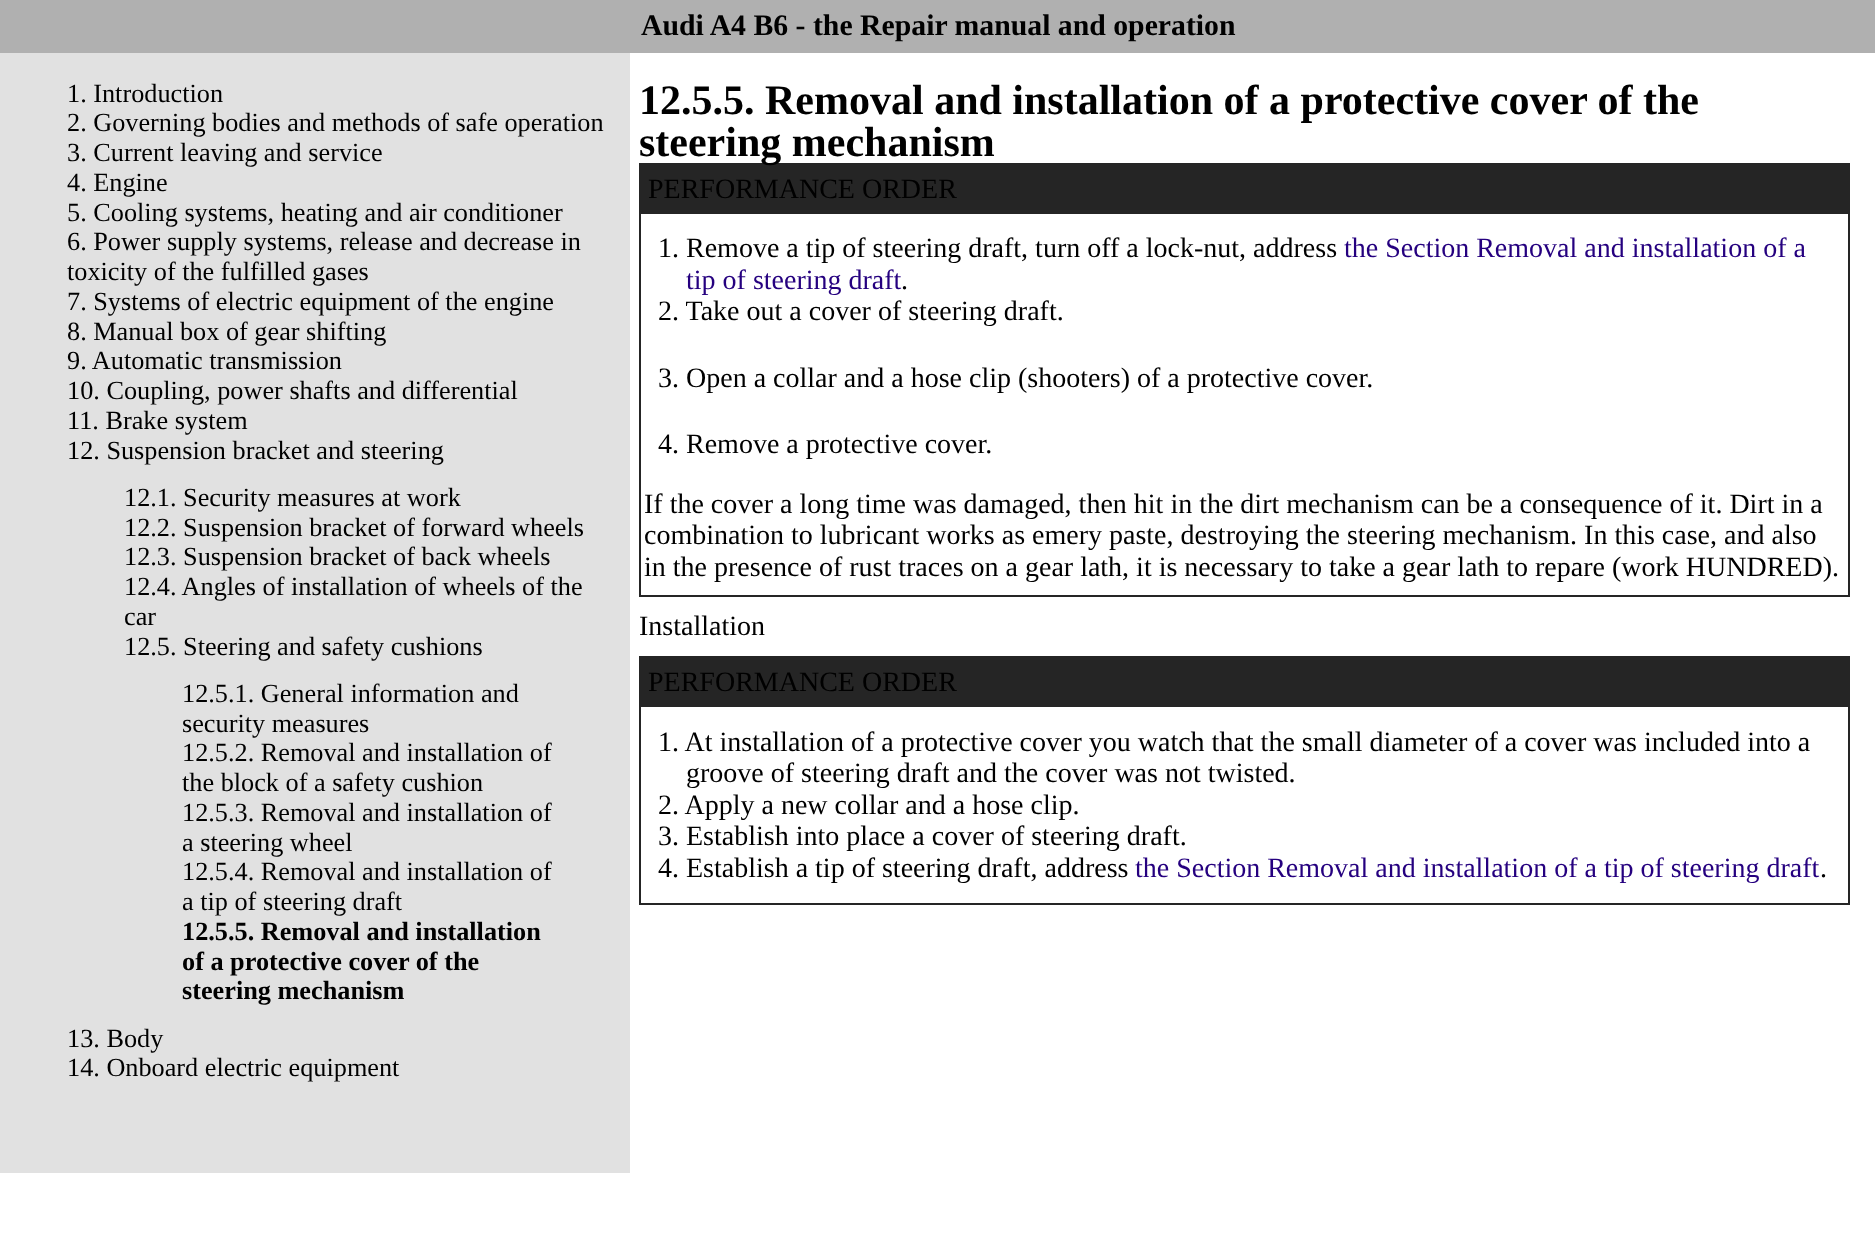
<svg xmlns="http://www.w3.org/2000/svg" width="1875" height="1256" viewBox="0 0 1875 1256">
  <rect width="100%" height="100%" fill="#ffffff"/>
  <rect x="0" y="0" width="1875" height="53" fill="#b0b0b0"/>
  <text x="641" y="35" font-family="Liberation Serif" font-size="29.75" font-weight="bold" fill="#000000">Audi A4 B6 - the Repair manual and operation</text>
  <rect x="0" y="53" width="630" height="1120" fill="#e1e1e1"/>
  <text x="67" y="102" font-family="Liberation Serif" font-size="26.25" fill="#000000">1. Introduction</text>
  <text x="67" y="131" font-family="Liberation Serif" font-size="26.25" fill="#000000">2. Governing bodies and methods of safe operation</text>
  <text x="67" y="161" font-family="Liberation Serif" font-size="26.25" fill="#000000">3. Current leaving and service</text>
  <text x="67" y="191" font-family="Liberation Serif" font-size="26.25" fill="#000000">4. Engine</text>
  <text x="67" y="221" font-family="Liberation Serif" font-size="26.25" fill="#000000">5. Cooling systems, heating and air conditioner</text>
  <text x="67" y="250" font-family="Liberation Serif" font-size="26.25" fill="#000000">6. Power supply systems, release and decrease in</text>
  <text x="67" y="280" font-family="Liberation Serif" font-size="26.25" fill="#000000">toxicity of the fulfilled gases</text>
  <text x="67" y="310" font-family="Liberation Serif" font-size="26.25" fill="#000000">7. Systems of electric equipment of the engine</text>
  <text x="67" y="340" font-family="Liberation Serif" font-size="26.25" fill="#000000">8. Manual box of gear shifting</text>
  <text x="67" y="369" font-family="Liberation Serif" font-size="26.25" fill="#000000">9. Automatic transmission</text>
  <text x="67" y="399" font-family="Liberation Serif" font-size="26.25" fill="#000000">10. Coupling, power shafts and differential</text>
  <text x="67" y="429" font-family="Liberation Serif" font-size="26.25" fill="#000000">11. Brake system</text>
  <text x="67" y="459" font-family="Liberation Serif" font-size="26.25" fill="#000000">12. Suspension bracket and steering</text>
  <text x="124" y="506" font-family="Liberation Serif" font-size="26.25" fill="#000000">12.1. Security measures at work</text>
  <text x="124" y="536" font-family="Liberation Serif" font-size="26.25" fill="#000000">12.2. Suspension bracket of forward wheels</text>
  <text x="124" y="565" font-family="Liberation Serif" font-size="26.25" fill="#000000">12.3. Suspension bracket of back wheels</text>
  <text x="124" y="595" font-family="Liberation Serif" font-size="26.25" fill="#000000">12.4. Angles of installation of wheels of the</text>
  <text x="124" y="625" font-family="Liberation Serif" font-size="26.25" fill="#000000">car</text>
  <text x="124" y="655" font-family="Liberation Serif" font-size="26.25" fill="#000000">12.5. Steering and safety cushions</text>
  <text x="182" y="702" font-family="Liberation Serif" font-size="26.25" fill="#000000">12.5.1. General information and</text>
  <text x="182" y="732" font-family="Liberation Serif" font-size="26.25" fill="#000000">security measures</text>
  <text x="182" y="761" font-family="Liberation Serif" font-size="26.25" fill="#000000">12.5.2. Removal and installation of</text>
  <text x="182" y="791" font-family="Liberation Serif" font-size="26.25" fill="#000000">the block of a safety cushion</text>
  <text x="182" y="821" font-family="Liberation Serif" font-size="26.25" fill="#000000">12.5.3. Removal and installation of</text>
  <text x="182" y="851" font-family="Liberation Serif" font-size="26.25" fill="#000000">a steering wheel</text>
  <text x="182" y="880" font-family="Liberation Serif" font-size="26.25" fill="#000000">12.5.4. Removal and installation of</text>
  <text x="182" y="910" font-family="Liberation Serif" font-size="26.25" fill="#000000">a tip of steering draft</text>
  <text x="182" y="940" font-family="Liberation Serif" font-size="26.25" font-weight="bold" fill="#000000">12.5.5. Removal and installation</text>
  <text x="182" y="970" font-family="Liberation Serif" font-size="26.25" font-weight="bold" fill="#000000">of a protective cover of the</text>
  <text x="182" y="999" font-family="Liberation Serif" font-size="26.25" font-weight="bold" fill="#000000">steering mechanism</text>
  <text x="67" y="1047" font-family="Liberation Serif" font-size="26.25" fill="#000000">13. Body</text>
  <text x="67" y="1076" font-family="Liberation Serif" font-size="26.25" fill="#000000">14. Onboard electric equipment</text>
  <text x="639" y="114" font-family="Liberation Serif" font-size="42" font-weight="bold" fill="#000000">12.5.5. Removal and installation of a protective cover of the</text>
  <rect x="639" y="163" width="1211" height="434" fill="#252525"/>
  <text x="639" y="156" font-family="Liberation Serif" font-size="42" font-weight="bold" fill="#000000">steering mechanism</text>
  <text x="648" y="198" font-family="Liberation Serif" font-size="28" fill="#000000">PERFORMANCE ORDER</text>
  <rect x="641" y="214" width="1207" height="381" fill="#ffffff"/>
  <text x="658" y="257" font-family="Liberation Serif" font-size="28" fill="#000000">1. Remove a tip of steering draft, turn off a lock-nut, address</text>
  <text x="1344" y="257" font-family="Liberation Serif" font-size="28" fill="#25007f">the Section Removal and installation of a</text>
  <text x="686" y="289" font-family="Liberation Serif" font-size="28" fill="#25007f">tip of steering draft</text>
  <text x="901" y="289" font-family="Liberation Serif" font-size="28" fill="#000000">.</text>
  <text x="658" y="320" font-family="Liberation Serif" font-size="28" fill="#000000">2. Take out a cover of steering draft.</text>
  <text x="658" y="387" font-family="Liberation Serif" font-size="28" fill="#000000">3. Open a collar and a hose clip (shooters) of a protective cover.</text>
  <text x="658" y="453" font-family="Liberation Serif" font-size="28" fill="#000000">4. Remove a protective cover.</text>
  <text x="644" y="513" font-family="Liberation Serif" font-size="28" fill="#000000">If the cover a long time was damaged, then hit in the dirt mechanism can be a consequence of it. Dirt in a</text>
  <text x="644" y="544" font-family="Liberation Serif" font-size="28" fill="#000000">combination to lubricant works as emery paste, destroying the steering mechanism. In this case, and also</text>
  <text x="644" y="576" font-family="Liberation Serif" font-size="28" fill="#000000">in the presence of rust traces on a gear lath, it is necessary to take a gear lath to repare (work HUNDRED).</text>
  <text x="639" y="635" font-family="Liberation Serif" font-size="28" fill="#000000">Installation</text>
  <rect x="639" y="656" width="1211" height="249" fill="#252525"/>
  <text x="648" y="691" font-family="Liberation Serif" font-size="28" fill="#000000">PERFORMANCE ORDER</text>
  <rect x="641" y="707" width="1207" height="196" fill="#ffffff"/>
  <text x="658" y="751" font-family="Liberation Serif" font-size="28" fill="#000000">1. At installation of a protective cover you watch that the small diameter of a cover was included into a</text>
  <text x="686" y="782" font-family="Liberation Serif" font-size="28" fill="#000000">groove of steering draft and the cover was not twisted.</text>
  <text x="658" y="814" font-family="Liberation Serif" font-size="28" fill="#000000">2. Apply a new collar and a hose clip.</text>
  <text x="658" y="845" font-family="Liberation Serif" font-size="28" fill="#000000">3. Establish into place a cover of steering draft.</text>
  <text x="658" y="877" font-family="Liberation Serif" font-size="28" fill="#000000">4. Establish a tip of steering draft, address</text>
  <text x="1135" y="877" font-family="Liberation Serif" font-size="28" fill="#25007f">the Section Removal and installation of a tip of steering draft</text>
  <text x="1820" y="877" font-family="Liberation Serif" font-size="28" fill="#000000">.</text>
</svg>
